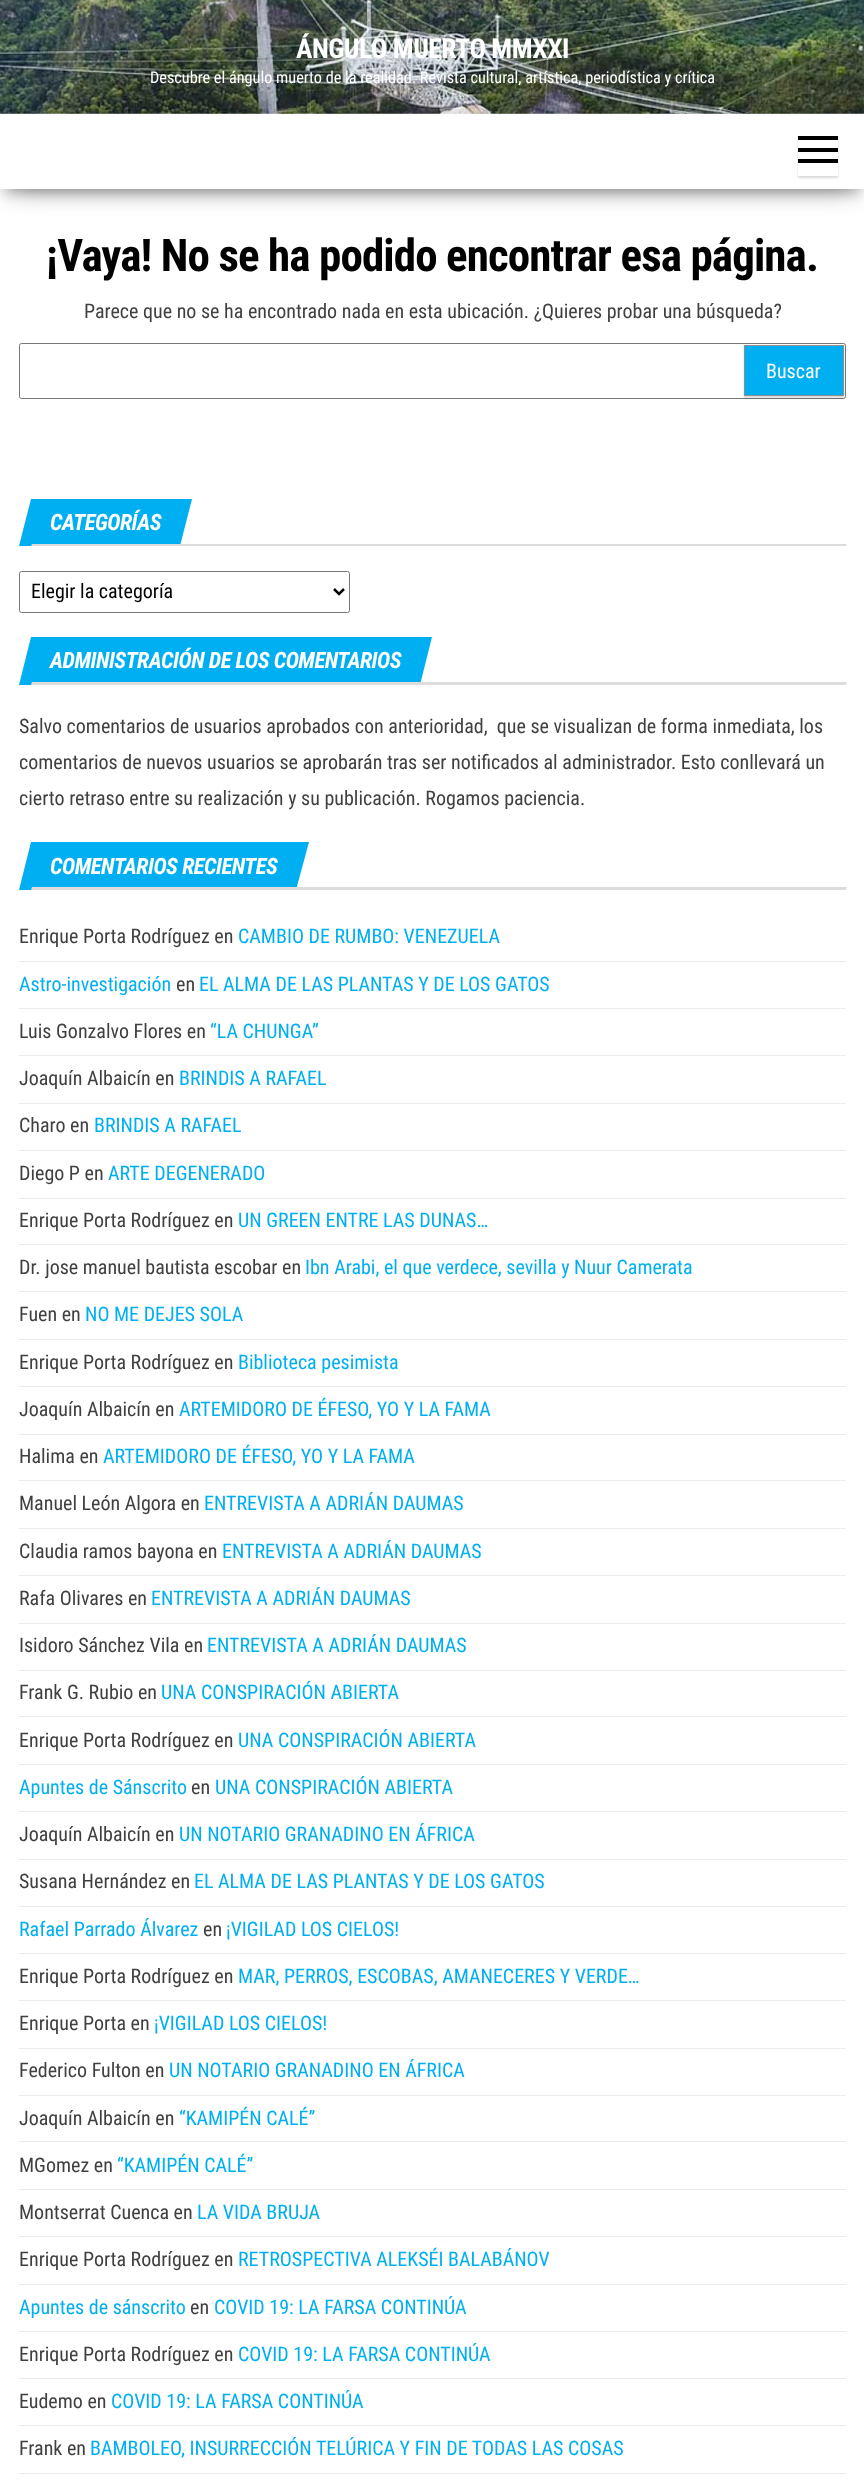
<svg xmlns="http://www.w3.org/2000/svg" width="864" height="2492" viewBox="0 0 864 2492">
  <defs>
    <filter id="blur1" x="-50%" y="-200%" width="200%" height="500%"><feGaussianBlur stdDeviation="12.5"/></filter>
    <filter id="blur2" x="-50%" y="-200%" width="200%" height="500%"><feGaussianBlur stdDeviation="6"/></filter>
    <clipPath id="clip1"><path d="M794 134H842V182H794ZM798 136H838V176H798Z" clip-rule="evenodd"/></clipPath>
    <filter id="blur3" x="-50%" y="-200%" width="200%" height="500%"><feGaussianBlur stdDeviation="1"/></filter>
  </defs>
  <rect width="100%" height="100%" fill="#ffffff"/>
  <image x="0" y="0" width="864" height="114" href="img1.png"/>
  <text x="296" y="58" font-family="Roboto Condensed" font-size="27.5" font-weight="bold" letter-spacing="-0.5" fill="#ffffff">ÁNGULO MUERTO MMXXI</text>
  <rect x="0" y="118" width="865" height="75" fill="#000000" fill-opacity="0.12" filter="url(#blur1)"/>
  <text x="150" y="83" font-family="Roboto Condensed" font-size="16.25" fill="#ffffff">Descubre el ángulo muerto de la realidad. Revista cultural, artística, periodística y crítica</text>
  <rect x="6" y="130" width="853" height="63" fill="#000000" fill-opacity="0.2" filter="url(#blur2)"/>
  <rect x="15" y="141" width="835" height="45" fill="#000000" fill-opacity="0.42" filter="url(#blur1)"/>
  <rect x="0" y="114" width="864" height="75" fill="#ffffff"/>
  <g clip-path="url(#clip1)">
    <rect x="798" y="138" width="40" height="40" fill="#000000" fill-opacity="0.15" filter="url(#blur3)"/>
  </g>
  <rect x="798" y="136" width="40" height="4" fill="#000000"/>
  <rect x="798" y="148" width="40" height="4" fill="#000000"/>
  <rect x="798" y="159" width="40" height="4" fill="#000000"/>
  <text x="46" y="271" font-family="Roboto Condensed" font-size="45" font-weight="bold" letter-spacing="-0.9" fill="#000000">¡Vaya! No se ha podido encontrar esa página.</text>
  <text x="84" y="318" font-family="Roboto Condensed" font-size="20" fill="#404040">Parece que no se ha encontrado nada en esta ubicación. ¿Quieres probar una búsqueda?</text>
  <rect x="19.5" y="343.5" width="826" height="55" rx="2" fill="none" stroke="#767676"/>
  <rect x="744" y="346" width="100" height="52" fill="#000000" fill-opacity="0.15" filter="url(#blur3)"/>
  <rect x="744.5" y="345.5" width="99" height="50" fill="#00aff2" stroke="#8e8e8e"/>
  <text x="766" y="378" font-family="Roboto Condensed" font-size="20" fill="#ffffff">Buscar</text>
  <path d="M31 499H192L180 546H19Z" fill="#00aff2"/>
  <text x="50" y="530" font-family="Roboto Condensed" font-size="22.5" font-weight="bold" font-style="italic" letter-spacing="-0.45" fill="#ffffff">CATEGORÍAS</text>
  <path d="M32 544H847L846 546H31Z" fill="#dddddd"/>
  <rect x="19.5" y="571.5" width="330" height="41" rx="2" fill="none" stroke="#767676"/>
  <path d="M334 589L339 594L344 589" fill="none" stroke="#000000" stroke-width="2.5"/>
  <text x="31" y="598" font-family="Roboto Condensed" font-size="20" fill="#000000">Elegir la categoría</text>
  <path d="M31 637H432L420 685H19Z" fill="#00aff2"/>
  <text x="50" y="668" font-family="Roboto Condensed" font-size="22.5" font-weight="bold" font-style="italic" letter-spacing="-0.45" fill="#ffffff">ADMINISTRACIÓN DE LOS COMENTARIOS</text>
  <path d="M32 682H847L846 685H31Z" fill="#dddddd"/>
  <text x="19" y="733" font-family="Roboto Condensed" font-size="20" fill="#404040" xml:space="preserve">Salvo comentarios de usuarios aprobados con anterioridad,  que se visualizan de forma inmediata, los</text>
  <text x="19" y="769" font-family="Roboto Condensed" font-size="20" fill="#404040">comentarios de nuevos usuarios se aprobarán tras ser notificados al administrador. Esto conllevará un</text>
  <text x="19" y="805" font-family="Roboto Condensed" font-size="20" fill="#404040">cierto retraso entre su realización y su publicación. Rogamos paciencia.</text>
  <path d="M31 842H309L296 890H19Z" fill="#00aff2"/>
  <text x="50" y="874" font-family="Roboto Condensed" font-size="22.5" font-weight="bold" font-style="italic" letter-spacing="-0.45" fill="#ffffff">COMENTARIOS RECIENTES</text>
  <path d="M32 887H847L846 890H31Z" fill="#dddddd"/>
  <rect x="19" y="961" width="827" height="1" fill="#ebebeb"/>
  <text x="19" y="943" font-family="Roboto Condensed" font-size="20" fill="#404040">Enrique Porta Rodríguez en</text>
  <text x="238" y="943" font-family="Roboto Condensed" font-size="20" fill="#00aff2">CAMBIO DE RUMBO: VENEZUELA</text>
  <rect x="19" y="1008" width="827" height="1" fill="#ebebeb"/>
  <text x="19" y="991" font-family="Roboto Condensed" font-size="20" fill="#00aff2">Astro-investigación</text>
  <text x="176" y="991" font-family="Roboto Condensed" font-size="20" fill="#404040">en</text>
  <text x="199" y="991" font-family="Roboto Condensed" font-size="20" fill="#00aff2">EL ALMA DE LAS PLANTAS Y DE LOS GATOS</text>
  <rect x="19" y="1055" width="827" height="1" fill="#ebebeb"/>
  <text x="19" y="1038" font-family="Roboto Condensed" font-size="20" fill="#404040">Luis Gonzalvo Flores en</text>
  <text x="210" y="1038" font-family="Roboto Condensed" font-size="20" fill="#00aff2">“LA CHUNGA”</text>
  <rect x="19" y="1103" width="827" height="1" fill="#ebebeb"/>
  <text x="19" y="1085" font-family="Roboto Condensed" font-size="20" fill="#404040">Joaquín Albaicín en</text>
  <text x="179" y="1085" font-family="Roboto Condensed" font-size="20" fill="#00aff2">BRINDIS A RAFAEL</text>
  <rect x="19" y="1150" width="827" height="1" fill="#ebebeb"/>
  <text x="19" y="1132" font-family="Roboto Condensed" font-size="20" fill="#404040">Charo en</text>
  <text x="94" y="1132" font-family="Roboto Condensed" font-size="20" fill="#00aff2">BRINDIS A RAFAEL</text>
  <rect x="19" y="1198" width="827" height="1" fill="#ebebeb"/>
  <text x="19" y="1180" font-family="Roboto Condensed" font-size="20" fill="#404040">Diego P en</text>
  <text x="108" y="1180" font-family="Roboto Condensed" font-size="20" fill="#00aff2">ARTE DEGENERADO</text>
  <rect x="19" y="1244" width="827" height="1" fill="#ebebeb"/>
  <text x="19" y="1227" font-family="Roboto Condensed" font-size="20" fill="#404040">Enrique Porta Rodríguez en</text>
  <text x="238" y="1227" font-family="Roboto Condensed" font-size="20" fill="#00aff2">UN GREEN ENTRE LAS DUNAS…</text>
  <rect x="19" y="1291" width="827" height="1" fill="#ebebeb"/>
  <text x="19" y="1274" font-family="Roboto Condensed" font-size="20" fill="#404040">Dr. jose manuel bautista escobar en</text>
  <text x="305" y="1274" font-family="Roboto Condensed" font-size="20" fill="#00aff2">Ibn Arabi, el que verdece, sevilla y Nuur Camerata</text>
  <rect x="19" y="1339" width="827" height="1" fill="#ebebeb"/>
  <text x="19" y="1321" font-family="Roboto Condensed" font-size="20" fill="#404040">Fuen en</text>
  <text x="85" y="1321" font-family="Roboto Condensed" font-size="20" fill="#00aff2">NO ME DEJES SOLA</text>
  <rect x="19" y="1386" width="827" height="1" fill="#ebebeb"/>
  <text x="19" y="1369" font-family="Roboto Condensed" font-size="20" fill="#404040">Enrique Porta Rodríguez en</text>
  <text x="238" y="1369" font-family="Roboto Condensed" font-size="20" fill="#00aff2">Biblioteca pesimista</text>
  <rect x="19" y="1434" width="827" height="1" fill="#ebebeb"/>
  <text x="19" y="1416" font-family="Roboto Condensed" font-size="20" fill="#404040">Joaquín Albaicín en</text>
  <text x="179" y="1416" font-family="Roboto Condensed" font-size="20" fill="#00aff2">ARTEMIDORO DE ÉFESO, YO Y LA FAMA</text>
  <rect x="19" y="1480" width="827" height="1" fill="#ebebeb"/>
  <text x="19" y="1463" font-family="Roboto Condensed" font-size="20" fill="#404040">Halima en</text>
  <text x="103" y="1463" font-family="Roboto Condensed" font-size="20" fill="#00aff2">ARTEMIDORO DE ÉFESO, YO Y LA FAMA</text>
  <rect x="19" y="1528" width="827" height="1" fill="#ebebeb"/>
  <text x="19" y="1510" font-family="Roboto Condensed" font-size="20" fill="#404040">Manuel León Algora en</text>
  <text x="204" y="1510" font-family="Roboto Condensed" font-size="20" fill="#00aff2">ENTREVISTA A ADRIÁN DAUMAS</text>
  <rect x="19" y="1575" width="827" height="1" fill="#ebebeb"/>
  <text x="19" y="1558" font-family="Roboto Condensed" font-size="20" fill="#404040">Claudia ramos bayona en</text>
  <text x="222" y="1558" font-family="Roboto Condensed" font-size="20" fill="#00aff2">ENTREVISTA A ADRIÁN DAUMAS</text>
  <rect x="19" y="1623" width="827" height="1" fill="#ebebeb"/>
  <text x="19" y="1605" font-family="Roboto Condensed" font-size="20" fill="#404040">Rafa Olivares en</text>
  <text x="151" y="1605" font-family="Roboto Condensed" font-size="20" fill="#00aff2">ENTREVISTA A ADRIÁN DAUMAS</text>
  <rect x="19" y="1670" width="827" height="1" fill="#ebebeb"/>
  <text x="19" y="1652" font-family="Roboto Condensed" font-size="20" fill="#404040">Isidoro Sánchez Vila en</text>
  <text x="207" y="1652" font-family="Roboto Condensed" font-size="20" fill="#00aff2">ENTREVISTA A ADRIÁN DAUMAS</text>
  <rect x="19" y="1716" width="827" height="1" fill="#ebebeb"/>
  <text x="19" y="1699" font-family="Roboto Condensed" font-size="20" fill="#404040">Frank G. Rubio en</text>
  <text x="161" y="1699" font-family="Roboto Condensed" font-size="20" fill="#00aff2">UNA CONSPIRACIÓN ABIERTA</text>
  <rect x="19" y="1764" width="827" height="1" fill="#ebebeb"/>
  <text x="19" y="1747" font-family="Roboto Condensed" font-size="20" fill="#404040">Enrique Porta Rodríguez en</text>
  <text x="238" y="1747" font-family="Roboto Condensed" font-size="20" fill="#00aff2">UNA CONSPIRACIÓN ABIERTA</text>
  <rect x="19" y="1811" width="827" height="1" fill="#ebebeb"/>
  <text x="19" y="1794" font-family="Roboto Condensed" font-size="20" fill="#00aff2">Apuntes de Sánscrito</text>
  <text x="191" y="1794" font-family="Roboto Condensed" font-size="20" fill="#404040">en</text>
  <text x="215" y="1794" font-family="Roboto Condensed" font-size="20" fill="#00aff2">UNA CONSPIRACIÓN ABIERTA</text>
  <rect x="19" y="1859" width="827" height="1" fill="#ebebeb"/>
  <text x="19" y="1841" font-family="Roboto Condensed" font-size="20" fill="#404040">Joaquín Albaicín en</text>
  <text x="179" y="1841" font-family="Roboto Condensed" font-size="20" fill="#00aff2">UN NOTARIO GRANADINO EN ÁFRICA</text>
  <rect x="19" y="1906" width="827" height="1" fill="#ebebeb"/>
  <text x="19" y="1888" font-family="Roboto Condensed" font-size="20" fill="#404040">Susana Hernández en</text>
  <text x="194" y="1888" font-family="Roboto Condensed" font-size="20" fill="#00aff2">EL ALMA DE LAS PLANTAS Y DE LOS GATOS</text>
  <rect x="19" y="1953" width="827" height="1" fill="#ebebeb"/>
  <text x="19" y="1936" font-family="Roboto Condensed" font-size="20" fill="#00aff2">Rafael Parrado Álvarez</text>
  <text x="203" y="1936" font-family="Roboto Condensed" font-size="20" fill="#404040">en</text>
  <text x="226" y="1936" font-family="Roboto Condensed" font-size="20" fill="#00aff2">¡VIGILAD LOS CIELOS!</text>
  <rect x="19" y="2000" width="827" height="1" fill="#ebebeb"/>
  <text x="19" y="1983" font-family="Roboto Condensed" font-size="20" fill="#404040">Enrique Porta Rodríguez en</text>
  <text x="238" y="1983" font-family="Roboto Condensed" font-size="20" fill="#00aff2">MAR, PERROS, ESCOBAS, AMANECERES Y VERDE…</text>
  <rect x="19" y="2048" width="827" height="1" fill="#ebebeb"/>
  <text x="19" y="2030" font-family="Roboto Condensed" font-size="20" fill="#404040">Enrique Porta en</text>
  <text x="154" y="2030" font-family="Roboto Condensed" font-size="20" fill="#00aff2">¡VIGILAD LOS CIELOS!</text>
  <rect x="19" y="2095" width="827" height="1" fill="#ebebeb"/>
  <text x="19" y="2077" font-family="Roboto Condensed" font-size="20" fill="#404040">Federico Fulton en</text>
  <text x="169" y="2077" font-family="Roboto Condensed" font-size="20" fill="#00aff2">UN NOTARIO GRANADINO EN ÁFRICA</text>
  <rect x="19" y="2141" width="827" height="1" fill="#ebebeb"/>
  <text x="19" y="2125" font-family="Roboto Condensed" font-size="20" fill="#404040">Joaquín Albaicín en</text>
  <text x="179" y="2125" font-family="Roboto Condensed" font-size="20" fill="#00aff2">“KAMIPÉN CALÉ”</text>
  <rect x="19" y="2189" width="827" height="1" fill="#ebebeb"/>
  <text x="19" y="2172" font-family="Roboto Condensed" font-size="20" fill="#404040">MGomez en</text>
  <text x="117" y="2172" font-family="Roboto Condensed" font-size="20" fill="#00aff2">“KAMIPÉN CALÉ”</text>
  <rect x="19" y="2236" width="827" height="1" fill="#ebebeb"/>
  <text x="19" y="2219" font-family="Roboto Condensed" font-size="20" fill="#404040">Montserrat Cuenca en</text>
  <text x="197" y="2219" font-family="Roboto Condensed" font-size="20" fill="#00aff2">LA VIDA BRUJA</text>
  <rect x="19" y="2284" width="827" height="1" fill="#ebebeb"/>
  <text x="19" y="2266" font-family="Roboto Condensed" font-size="20" fill="#404040">Enrique Porta Rodríguez en</text>
  <text x="238" y="2266" font-family="Roboto Condensed" font-size="20" fill="#00aff2">RETROSPECTIVA ALEKSÉI BALABÁNOV</text>
  <rect x="19" y="2331" width="827" height="1" fill="#ebebeb"/>
  <text x="19" y="2314" font-family="Roboto Condensed" font-size="20" fill="#00aff2">Apuntes de sánscrito</text>
  <text x="190" y="2314" font-family="Roboto Condensed" font-size="20" fill="#404040">en</text>
  <text x="214" y="2314" font-family="Roboto Condensed" font-size="20" fill="#00aff2">COVID 19: LA FARSA CONTINÚA</text>
  <rect x="19" y="2378" width="827" height="1" fill="#ebebeb"/>
  <text x="19" y="2361" font-family="Roboto Condensed" font-size="20" fill="#404040">Enrique Porta Rodríguez en</text>
  <text x="238" y="2361" font-family="Roboto Condensed" font-size="20" fill="#00aff2">COVID 19: LA FARSA CONTINÚA</text>
  <rect x="19" y="2425" width="827" height="1" fill="#ebebeb"/>
  <text x="19" y="2408" font-family="Roboto Condensed" font-size="20" fill="#404040">Eudemo en</text>
  <text x="111" y="2408" font-family="Roboto Condensed" font-size="20" fill="#00aff2">COVID 19: LA FARSA CONTINÚA</text>
  <rect x="19" y="2473" width="827" height="1" fill="#ebebeb"/>
  <text x="19" y="2455" font-family="Roboto Condensed" font-size="20" fill="#404040">Frank en</text>
  <text x="90" y="2455" font-family="Roboto Condensed" font-size="20" fill="#00aff2">BAMBOLEO, INSURRECCIÓN TELÚRICA Y FIN DE TODAS LAS COSAS</text>
</svg>
